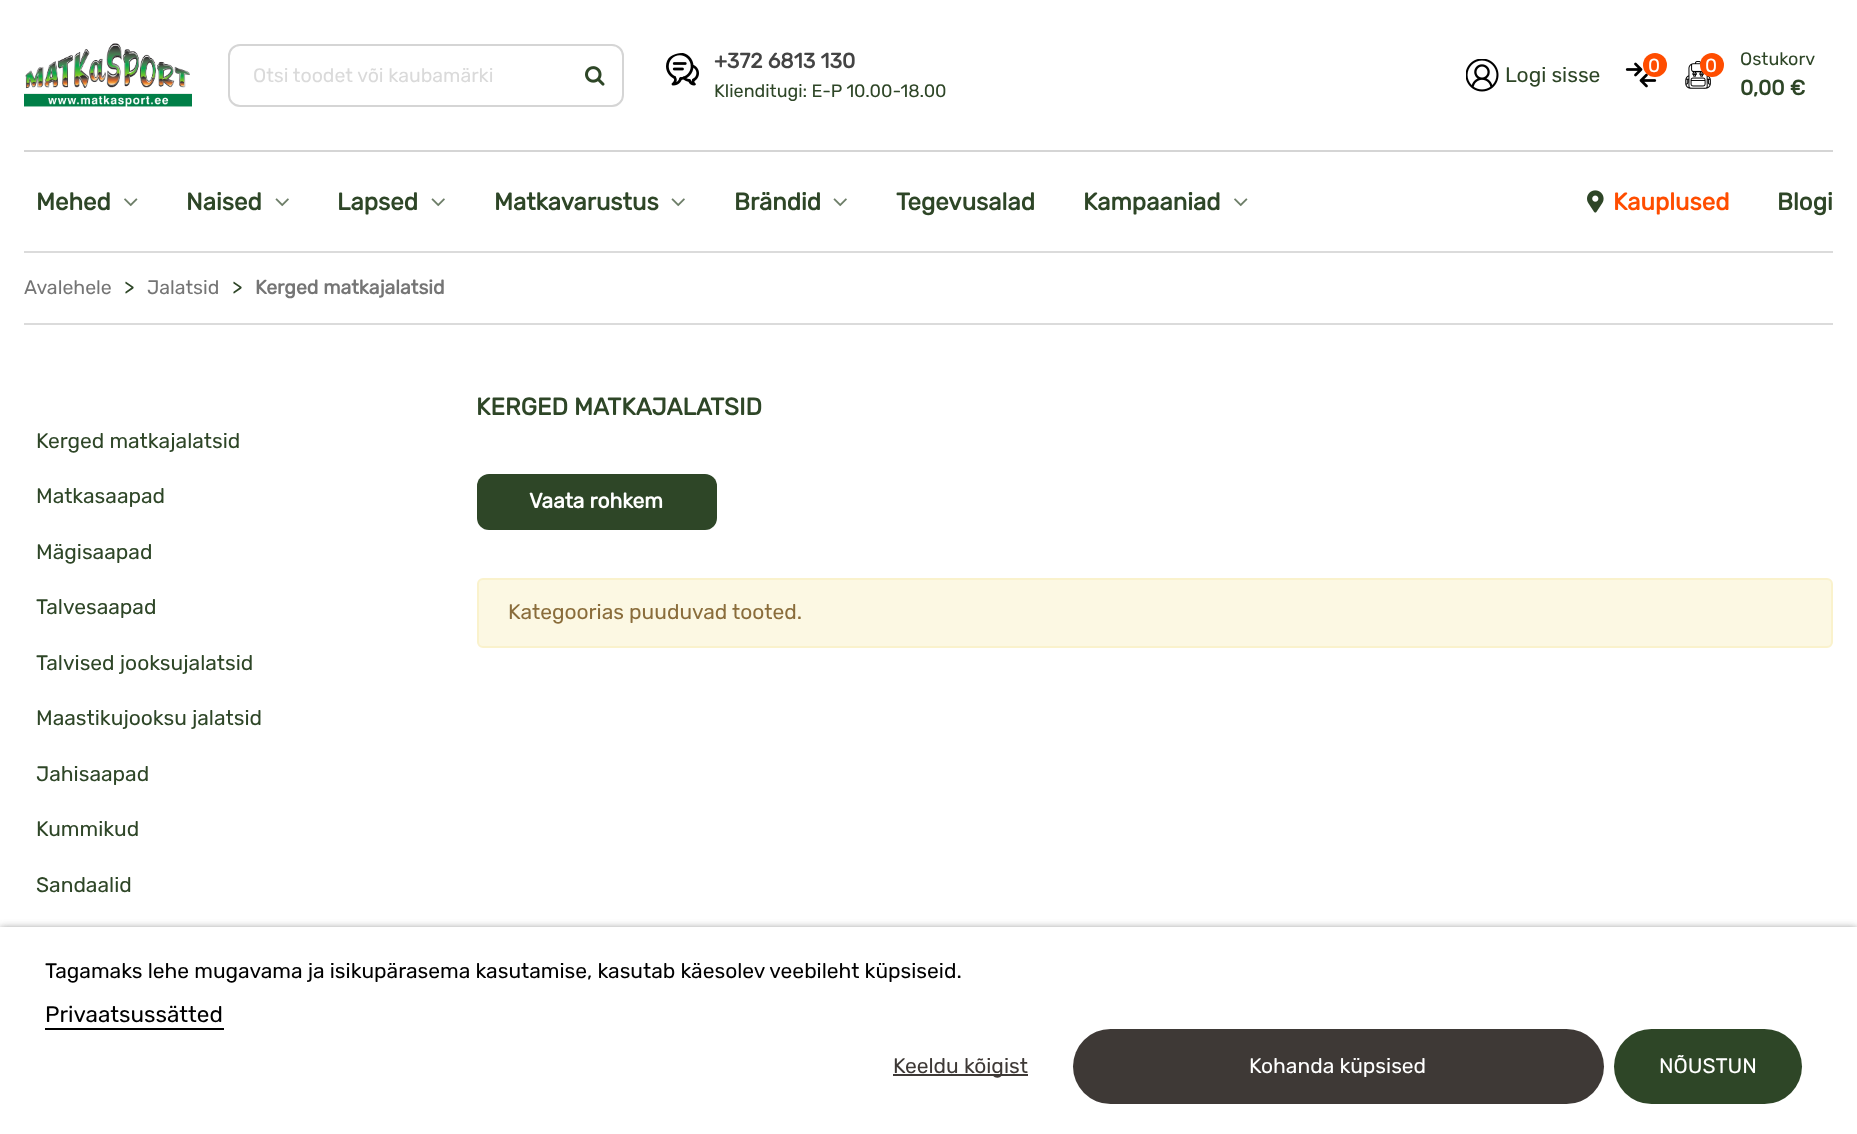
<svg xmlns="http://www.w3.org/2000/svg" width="1857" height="1134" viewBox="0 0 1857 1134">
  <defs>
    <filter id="blur1" x="-50%" y="-200%" width="200%" height="500%"><feGaussianBlur stdDeviation="4"/></filter>
  </defs>
  <rect width="100%" height="100%" fill="#ffffff"/>
  <image x="24" y="43" width="168" height="64" href="img1.png"/>
  <rect x="229" y="45" width="394" height="61" rx="11" fill="none" stroke="#d5d5d5" stroke-width="2"/>
  <text x="253" y="82" font-family="Rubik" font-size="19.5" fill="#dadada">Otsi toodet või kaubamärki</text>
  <image x="585" y="66" width="20" height="20" href="img2.png"/>
  <image x="666" y="53" width="33" height="33" href="img3.png"/>
  <text x="714" y="68" font-family="Rubik" font-size="21" font-weight="bold" fill="#444444">+372 6813 130</text>
  <text x="714" y="97" font-family="Rubik" font-size="18" fill="#2e4627">Klienditugi: E-P 10.00-18.00</text>
  <image x="1466" y="59" width="33" height="33" href="img4.png"/>
  <text x="1505" y="82" font-family="Rubik" font-size="21" fill="#2e4627">Logi sisse</text>
  <image x="1625" y="62" width="32" height="26" href="img5.png"/>
  <circle cx="1655" cy="65" r="12" fill="#ff4d00"/>
  <text x="1648" y="72" font-family="Rubik" font-size="19" fill="#ffffff">0</text>
  <image x="1685" y="61" width="26" height="28" href="img6.png"/>
  <circle cx="1712" cy="65" r="12" fill="#ff4d00"/>
  <text x="1705" y="72" font-family="Rubik" font-size="19" fill="#ffffff">0</text>
  <text x="1740" y="65" font-family="Rubik" font-size="18" fill="#2e4627">Ostukorv</text>
  <text x="1740" y="95" font-family="Rubik" font-size="21" font-weight="bold" fill="#2e4627">0,00 €</text>
  <rect x="24" y="150" width="1809" height="2" fill="#d5d5d5"/>
  <text x="36" y="210" font-family="Rubik" font-size="24" font-weight="bold" fill="#2e4627">Mehed</text>
  <image x="124" y="198" width="14" height="9" href="img7.png"/>
  <text x="186" y="210" font-family="Rubik" font-size="24" font-weight="bold" fill="#2e4627">Naised</text>
  <image x="275" y="198" width="14" height="9" href="img8.png"/>
  <text x="337" y="210" font-family="Rubik" font-size="24" font-weight="bold" fill="#2e4627">Lapsed</text>
  <image x="431" y="198" width="14" height="9" href="img8.png"/>
  <text x="494" y="210" font-family="Rubik" font-size="24" font-weight="bold" fill="#2e4627">Matkavarustus</text>
  <image x="671" y="198" width="14" height="9" href="img8.png"/>
  <text x="734" y="210" font-family="Rubik" font-size="24" font-weight="bold" fill="#2e4627">Brändid</text>
  <image x="833" y="198" width="14" height="9" href="img8.png"/>
  <text x="896" y="210" font-family="Rubik" font-size="24" font-weight="bold" fill="#2e4627">Tegevusalad</text>
  <text x="1083" y="210" font-family="Rubik" font-size="24" font-weight="bold" fill="#2e4627">Kampaaniad</text>
  <image x="1234" y="198" width="14" height="9" href="img7.png"/>
  <image x="1587" y="190" width="17" height="23" href="img9.png"/>
  <text x="1613" y="210" font-family="Rubik" font-size="24" font-weight="bold" fill="#ff4d00">Kauplused</text>
  <text x="1777" y="210" font-family="Rubik" font-size="24" font-weight="bold" fill="#2e4627">Blogi</text>
  <rect x="24" y="251" width="1809" height="2" fill="#dbdbdb"/>
  <rect x="24" y="323" width="1809" height="2" fill="#dbdbdb"/>
  <text x="24" y="294" font-family="Rubik" font-size="19.5" fill="#757575">Avalehele</text>
  <text x="124" y="294" font-family="Rubik" font-size="21" fill="#2e4627">&gt;</text>
  <text x="147" y="294" font-family="Rubik" font-size="19.5" fill="#757575">Jalatsid</text>
  <text x="232" y="294" font-family="Rubik" font-size="21" fill="#2e4627">&gt;</text>
  <text x="255" y="294" font-family="Rubik" font-size="19.5" font-weight="bold" fill="#757575">Kerged matkajalatsid</text>
  <text x="36" y="448" font-family="Rubik" font-size="21" fill="#2e4627">Kerged matkajalatsid</text>
  <text x="36" y="503" font-family="Rubik" font-size="21" fill="#2e4627">Matkasaapad</text>
  <text x="36" y="559" font-family="Rubik" font-size="21" fill="#2e4627">Mägisaapad</text>
  <text x="36" y="614" font-family="Rubik" font-size="21" fill="#2e4627">Talvesaapad</text>
  <text x="36" y="670" font-family="Rubik" font-size="21" fill="#2e4627">Talvised jooksujalatsid</text>
  <text x="36" y="725" font-family="Rubik" font-size="21" fill="#2e4627">Maastikujooksu jalatsid</text>
  <text x="36" y="781" font-family="Rubik" font-size="21" fill="#2e4627">Jahisaapad</text>
  <text x="36" y="836" font-family="Rubik" font-size="21" fill="#2e4627">Kummikud</text>
  <text x="36" y="892" font-family="Rubik" font-size="21" fill="#2e4627">Sandaalid</text>
  <text x="476" y="415" font-family="Rubik" font-size="24" font-weight="bold" fill="#2e4627">KERGED MATKAJALATSID</text>
  <rect x="477" y="474" width="240" height="56" rx="12" fill="#2e4627"/>
  <text x="529" y="508" font-family="Rubik" font-size="21" font-weight="bold" fill="#ffffff">Vaata rohkem</text>
  <rect x="478" y="579" width="1354" height="68" rx="5" fill="#fcf8e3" stroke="#faf2cc" stroke-width="2"/>
  <text x="508" y="619" font-family="Rubik" font-size="21" fill="#8a6d3b">Kategoorias puuduvad tooted.</text>
  <rect x="0" y="929" width="1857" height="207" fill="#707070" filter="url(#blur1)"/>
  <rect x="0" y="927" width="1857" height="207" fill="#ffffff"/>
  <text x="45" y="978" font-family="Rubik" font-size="21" fill="#000000">Tagamaks lehe mugavama ja isikupärasema kasutamise, kasutab käesolev veebileht küpsiseid.</text>
  <text x="45" y="1022" font-family="Rubik" font-size="22.5" fill="#000000">Privaatsussätted</text>
  <rect x="45" y="1028" width="179" height="2" fill="#000000"/>
  <rect x="893" y="1074" width="135" height="2" fill="#3e3936"/>
  <text x="893" y="1073" font-family="Rubik" font-size="21" fill="#3e3936">Keeldu kõigist</text>
  <rect x="1073" y="1029" width="531" height="75" rx="37.5" fill="#3e3936"/>
  <text x="1249" y="1073" font-family="Rubik" font-size="21" fill="#ffffff">Kohanda küpsised</text>
  <rect x="1614" y="1029" width="188" height="75" rx="37.5" fill="#2e4627"/>
  <text x="1659" y="1073" font-family="Rubik" font-size="21" fill="#ffffff">NÕUSTUN</text>
</svg>
